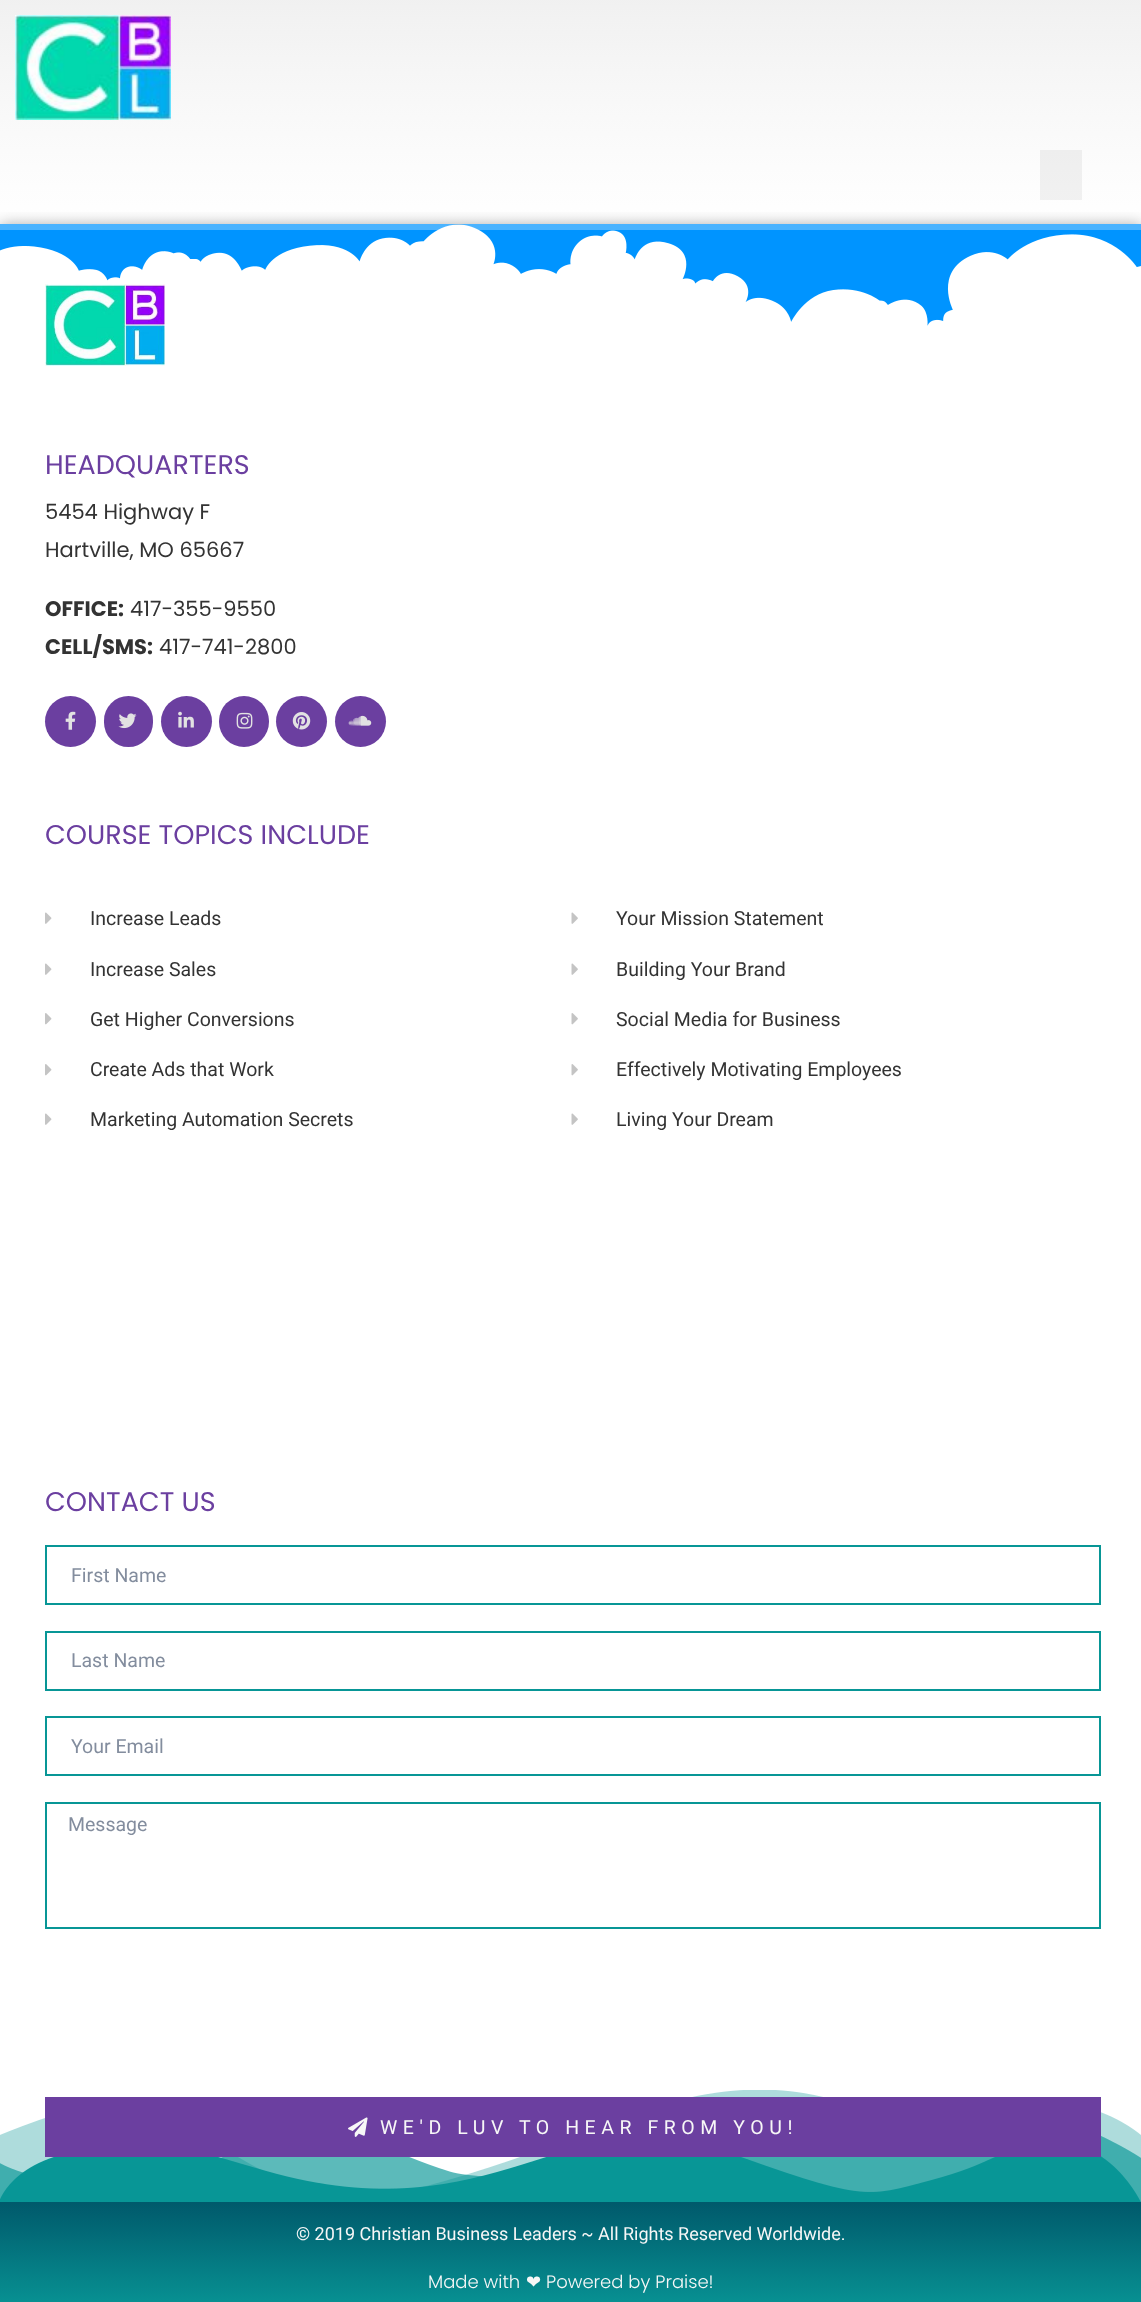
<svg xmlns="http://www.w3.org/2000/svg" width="1141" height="2302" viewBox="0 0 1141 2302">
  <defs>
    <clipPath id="clip1"><rect x="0" y="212" width="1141" height="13"/></clipPath>
    <filter id="blur1" x="-50%" y="-200%" width="200%" height="500%"><feGaussianBlur stdDeviation="7.5"/></filter>
    <linearGradient id="g1" gradientUnits="userSpaceOnUse" x1="571" y1="0" x2="571" y2="230"><stop offset="0" stop-color="#dddddd" stop-opacity="0.43"/><stop offset="1" stop-color="#ffffff" stop-opacity="0.29"/></linearGradient>
    <linearGradient id="g2" gradientUnits="userSpaceOnUse" x1="571" y1="2202" x2="571" y2="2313"><stop offset="0" stop-color="#00596b"/><stop offset="1" stop-color="#089696"/></linearGradient>
  </defs>
  <rect width="100%" height="100%" fill="#ffffff"/>
  <g clip-path="url(#clip1)">
    <rect x="0" y="225" width="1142" height="1977" fill="#000000" fill-opacity="0.5" filter="url(#blur1)"/>
  </g>
  <image x="0" y="224" width="1141" height="102" href="img2.png"/>
  <rect x="0" y="0" width="1141" height="230" fill="url(#g1)"/>
  <image x="15" y="15" width="156" height="105" href="img1.png"/>
  <rect x="1040" y="150" width="42" height="50" fill="#000000" fill-opacity="0.05"/>
  <image x="45" y="284" width="120" height="82" href="img3.png"/>
  <text x="45" y="474" font-family="Poppins" font-size="27" fill="#6b3fa0">HEADQUARTERS</text>
  <text x="45" y="519" font-family="Poppins" font-size="21" fill="#333333">5454 Highway F</text>
  <text x="45" y="557" font-family="Poppins" font-size="21" fill="#333333">Hartville, MO 65667</text>
  <text x="45" y="616" font-family="Poppins" font-size="21" font-weight="bold" fill="#333333">OFFICE:</text>
  <text x="130" y="616" font-family="Poppins" font-size="21" fill="#333333">417-355-9550</text>
  <text x="45" y="654" font-family="Poppins" font-size="21" font-weight="bold" fill="#333333">CELL/SMS:</text>
  <text x="159" y="654" font-family="Poppins" font-size="21" fill="#333333">417-741-2800</text>
  <circle cx="70.5" cy="721.5" r="25.5" fill="#6b3fa0"/>
  <image x="65" y="711" width="11" height="19" href="img4.png"/>
  <rect x="104" y="696" width="49" height="51" rx="24.5" fill="#6b3fa0"/>
  <image x="118" y="713" width="19" height="16" href="img5.png"/>
  <circle cx="186.5" cy="721.5" r="25.5" fill="#6b3fa0"/>
  <image x="178" y="711" width="16" height="17" href="img6.png"/>
  <rect x="219" y="696" width="50" height="51" rx="25" fill="#6b3fa0"/>
  <image x="236" y="712" width="17" height="17" href="img7.png"/>
  <circle cx="301.5" cy="721.5" r="25.5" fill="#6b3fa0"/>
  <image x="292" y="712" width="19" height="18" href="img8.png"/>
  <circle cx="360.5" cy="721.5" r="25.5" fill="#6b3fa0"/>
  <image x="348" y="715" width="24" height="11" href="img9.png"/>
  <text x="45" y="844" font-family="Poppins" font-size="27" fill="#6b3fa0">COURSE TOPICS INCLUDE</text>
  <image x="45" y="912" width="7" height="12" href="img10.png"/>
  <text x="90" y="925" font-family="Roboto" font-size="19.5" fill="#333333">Increase Leads</text>
  <image x="45" y="963" width="7" height="12" href="img10.png"/>
  <text x="90" y="976" font-family="Roboto" font-size="19.5" fill="#333333">Increase Sales</text>
  <image x="45" y="1013" width="7" height="12" href="img11.png"/>
  <text x="90" y="1026" font-family="Roboto" font-size="19.5" fill="#333333">Get Higher Conversions</text>
  <image x="45" y="1064" width="7" height="12" href="img11.png"/>
  <text x="90" y="1076" font-family="Roboto" font-size="19.5" fill="#333333">Create Ads that Work</text>
  <image x="45" y="1113" width="7" height="12" href="img10.png"/>
  <text x="90" y="1126" font-family="Roboto" font-size="19.5" fill="#333333">Marketing Automation Secrets</text>
  <image x="571" y="912" width="7" height="12" href="img12.png"/>
  <text x="616" y="925" font-family="Roboto" font-size="19.5" fill="#333333">Your Mission Statement</text>
  <image x="571" y="963" width="7" height="12" href="img12.png"/>
  <text x="616" y="976" font-family="Roboto" font-size="19.5" fill="#333333">Building Your Brand</text>
  <image x="571" y="1013" width="7" height="12" href="img13.png"/>
  <text x="616" y="1026" font-family="Roboto" font-size="19.5" fill="#333333">Social Media for Business</text>
  <image x="571" y="1064" width="7" height="12" href="img13.png"/>
  <text x="616" y="1076" font-family="Roboto" font-size="19.5" fill="#333333">Effectively Motivating Employees</text>
  <image x="571" y="1113" width="7" height="12" href="img12.png"/>
  <text x="616" y="1126" font-family="Roboto" font-size="19.5" fill="#333333">Living Your Dream</text>
  <text x="45" y="1511" font-family="Poppins" font-size="27" fill="#6b3fa0">CONTACT US</text>
  <rect x="46" y="1546" width="1054" height="58" fill="none" stroke="#089696" stroke-width="2"/>
  <text x="71" y="1582" font-family="Roboto" font-size="19.5" fill="#838d9e">First Name</text>
  <rect x="46" y="1632" width="1054" height="58" fill="none" stroke="#089696" stroke-width="2"/>
  <text x="71" y="1667" font-family="Roboto" font-size="19.5" fill="#838d9e">Last Name</text>
  <rect x="46" y="1717" width="1054" height="58" fill="none" stroke="#089696" stroke-width="2"/>
  <text x="71" y="1753" font-family="Roboto" font-size="19.5" fill="#838d9e">Your Email</text>
  <rect x="46" y="1803" width="1054" height="125" fill="none" stroke="#089696" stroke-width="2"/>
  <text x="68" y="1831" font-family="Roboto" font-size="19.5" fill="#838d9e">Message</text>
  <image x="0" y="2090" width="1141" height="112" href="img15.png"/>
  <rect x="45" y="2097" width="1056" height="60" fill="#6b3fa0"/>
  <image x="348" y="2117" width="20" height="20" href="img14.png"/>
  <text x="380" y="2134" font-family="Roboto" font-size="19.5" letter-spacing="5.55" fill="#f7f7f7">WE'D LUV TO HEAR FROM YOU!</text>
  <rect x="0" y="2202" width="1141" height="100" fill="url(#g2)"/>
  <text x="296" y="2240" font-family="Roboto" font-size="18" fill="#f7f7f7">© 2019 Christian Business Leaders ~ All Rights Reserved Worldwide.</text>
  <text x="428" y="2288" font-family="Poppins" font-size="18" font-weight="300" fill="#f7f7f7">Made with</text>
  <text x="526" y="2288" font-family="DejaVu Sans" font-size="18" fill="#f7f7f7">❤</text>
  <text x="546" y="2288" font-family="Poppins" font-size="18" font-weight="300" fill="#f7f7f7">Powered by Praise!</text>
</svg>
